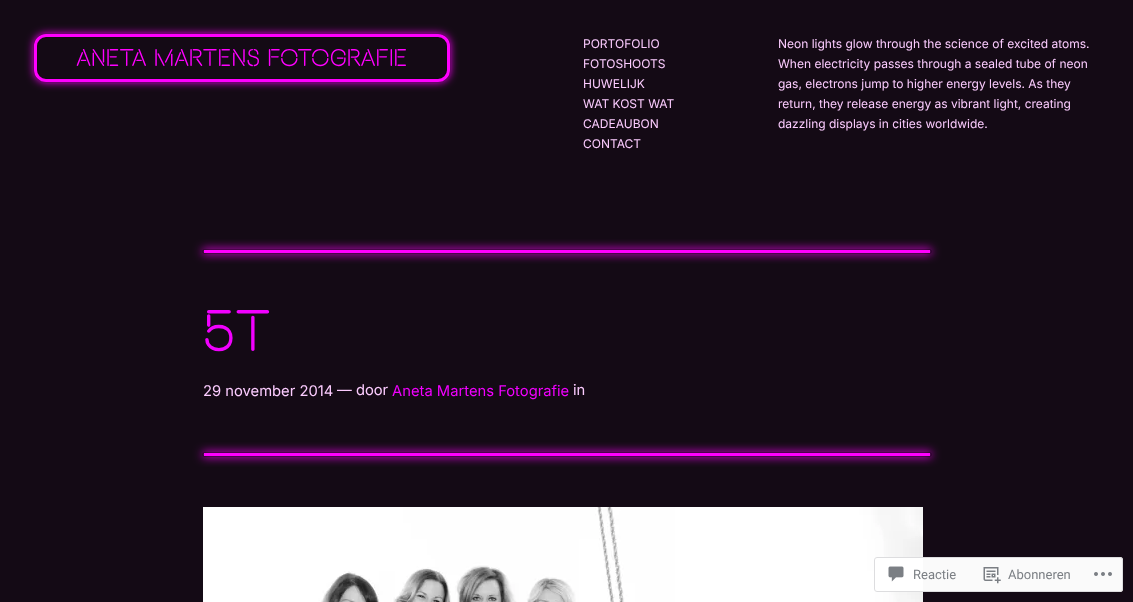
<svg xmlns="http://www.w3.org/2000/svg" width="1133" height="602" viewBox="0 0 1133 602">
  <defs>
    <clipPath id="clip1"><path d="M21 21H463V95H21ZM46 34H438C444.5 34 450 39.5 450 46V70C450 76.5 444.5 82 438 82H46C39.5 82 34 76.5 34 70V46C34 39.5 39.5 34 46 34Z" clip-rule="evenodd"/></clipPath>
    <filter id="blur1" x="-50%" y="-200%" width="200%" height="500%"><feGaussianBlur stdDeviation="4"/></filter>
    <filter id="blur2" x="-50%" y="-200%" width="200%" height="500%"><feGaussianBlur stdDeviation="5"/></filter>
  </defs>
  <rect width="100%" height="100%" fill="#140a15"/>
  <g clip-path="url(#clip1)">
    <rect x="34" y="34" width="416" height="48" rx="12" fill="#ff00ff" filter="url(#blur1)"/>
  </g>
  <rect x="33.5" y="33.5" width="417" height="49" rx="12.5" fill="none" stroke="#000000" stroke-opacity="0.15"/>
  <rect x="37.5" y="37.5" width="409" height="41" rx="8.5" fill="none" stroke="#110912"/>
  <rect x="35.5" y="35.5" width="413" height="45" rx="10.5" fill="none" stroke="#ff00ff" stroke-width="3"/>
  <text x="76" y="66" font-family="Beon" font-size="25.75" fill="#ff00ff">ANETA MARTENS FOTOGRAFIE</text>
  <text x="583" y="48" font-family="Inter" font-size="12" fill="#fcccff">PORTOFOLIO</text>
  <text x="583" y="68" font-family="Inter" font-size="12" fill="#fcccff">FOTOSHOOTS</text>
  <text x="583" y="88" font-family="Inter" font-size="12" fill="#fcccff">HUWELIJK</text>
  <text x="583" y="108" font-family="Inter" font-size="12" fill="#fcccff">WAT KOST WAT</text>
  <text x="583" y="128" font-family="Inter" font-size="12" fill="#fcccff">CADEAUBON</text>
  <text x="583" y="148" font-family="Inter" font-size="12" fill="#fcccff">CONTACT</text>
  <text x="778" y="48" font-family="Inter" font-size="12" fill="#fcccff">Neon lights glow through the science of excited atoms.</text>
  <text x="778" y="68" font-family="Inter" font-size="12" fill="#fcccff">When electricity passes through a sealed tube of neon</text>
  <text x="778" y="88" font-family="Inter" font-size="12" fill="#fcccff">gas, electrons jump to higher energy levels. As they</text>
  <text x="778" y="108" font-family="Inter" font-size="12" fill="#fcccff">return, they release energy as vibrant light, creating</text>
  <text x="778" y="128" font-family="Inter" font-size="12" fill="#fcccff">dazzling displays in cities worldwide.</text>
  <rect x="202" y="249" width="730" height="5" rx="2.5" fill="#ff00ff" filter="url(#blur2)"/>
  <rect x="202.5" y="249.5" width="729" height="4" rx="2" fill="none" stroke="#000000" stroke-opacity="0.3"/>
  <rect x="204" y="250" width="726" height="3" fill="#ff00ff"/>
  <text x="203" y="351" font-family="Beon" font-size="62" fill="#f200ff">5T</text>
  <text x="203" y="396" font-family="Inter" font-size="14.75" fill="#fcccff">29 november 2014</text>
  <text x="337" y="395" font-family="Inter" font-size="14.75" fill="#fcccff">— door</text>
  <text x="392" y="396" font-family="Inter" font-size="14.75" fill="#f200ff">Aneta Martens Fotografie</text>
  <text x="573" y="395" font-family="Inter" font-size="14.75" fill="#fcccff">in</text>
  <rect x="202" y="452" width="730" height="5" rx="2.5" fill="#ff00ff" filter="url(#blur2)"/>
  <rect x="202.5" y="452.5" width="729" height="4" rx="2" fill="none" stroke="#000000" stroke-opacity="0.3"/>
  <rect x="204" y="453" width="726" height="3" fill="#ff00ff"/>
  <image x="203" y="507" width="720" height="95" href="img1.png"/>
  <rect x="874" y="557" width="249" height="35" rx="3" fill="#ffffff" fill-opacity="0.98"/>
  <rect x="874.5" y="557.5" width="248" height="34" rx="2.5" fill="none" stroke="#dcdcde" stroke-opacity="0.98"/>
  <image x="888" y="566" width="16" height="16" href="img2.png"/>
  <text x="913" y="579" font-family="Roboto" font-size="13" fill="#7b7f84">Reactie</text>
  <image x="983" y="567" width="18" height="17" href="img3.png"/>
  <text x="1008" y="579" font-family="Roboto" font-size="13" fill="#7b7f84">Abonneren</text>
  <image x="1094" y="572" width="18" height="4" href="img4.png"/>
</svg>
